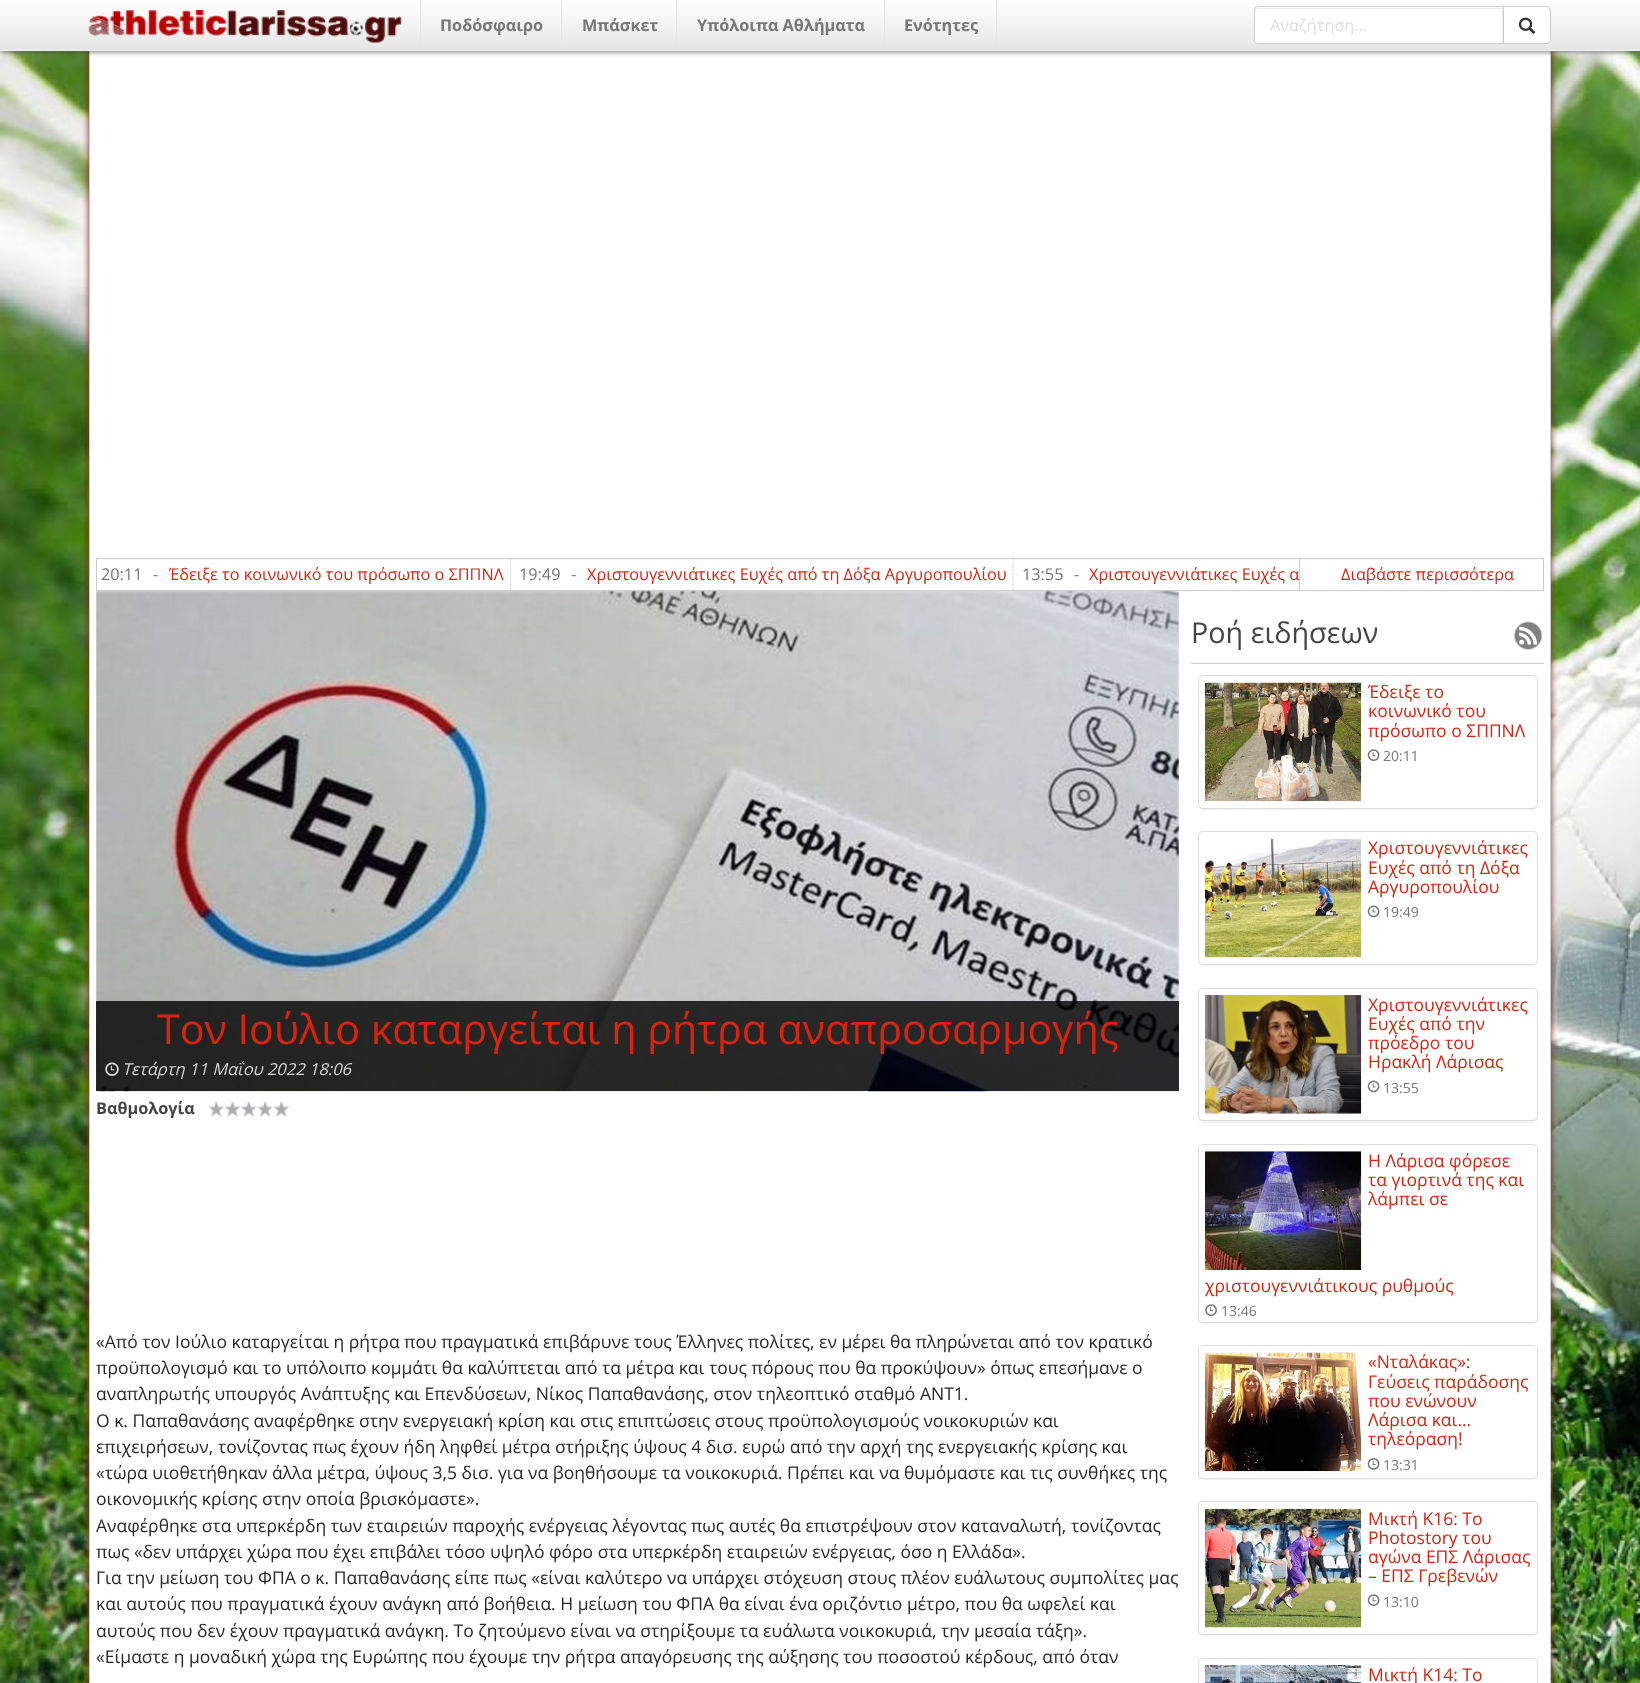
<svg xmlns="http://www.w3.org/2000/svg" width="1640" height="1683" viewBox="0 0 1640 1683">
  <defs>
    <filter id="blur1" x="-50%" y="-200%" width="200%" height="500%"><feGaussianBlur stdDeviation="3"/></filter>
    <linearGradient id="g1" gradientUnits="userSpaceOnUse" x1="820" y1="0" x2="820" y2="50"><stop offset="0" stop-color="#ffffff"/><stop offset="1" stop-color="#e6e6e6"/></linearGradient>
    <filter id="blur2" x="-50%" y="-200%" width="200%" height="500%"><feGaussianBlur stdDeviation="0.5"/></filter>
  </defs>
  <rect width="100%" height="100%" fill="#ffffff"/>
  <image x="0" y="51" width="1640" height="1632" href="img1.png"/>
  <rect x="89" y="44" width="1462" height="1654" rx="6" fill="#8a1919" filter="url(#blur1)"/>
  <rect x="90" y="51" width="1460" height="1632" fill="#ffffff"/>
  <rect x="89.5" y="44.5" width="1461" height="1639" fill="none" stroke="#cccccc"/>
  <rect x="0" y="0" width="1640" height="51" fill="#4d4d4d" filter="url(#blur1)"/>
  <rect x="0" y="0" width="1640" height="50" fill="url(#g1)"/>
  <rect x="0" y="50" width="1640" height="1" fill="#eeeeee"/>
  <image x="88" y="10" width="314" height="33" href="img2.png"/>
  <rect x="561" y="0" width="1" height="50" fill="#e6e6e6"/>
  <rect x="420" y="0" width="1" height="50" fill="#e6e6e6"/>
  <text x="440" y="31" font-family="Open Sans" font-size="16.25" font-weight="bold" fill="#777777">Ποδόσφαιρο</text>
  <rect x="676" y="0" width="1" height="50" fill="#e6e6e6"/>
  <text x="582" y="31" font-family="Open Sans" font-size="16.25" font-weight="bold" fill="#777777">Μπάσκετ</text>
  <rect x="884" y="0" width="1" height="50" fill="#e6e6e6"/>
  <text x="697" y="31" font-family="Open Sans" font-size="16.25" font-weight="bold" fill="#777777">Υπόλοιπα Αθλήματα</text>
  <rect x="996" y="0" width="1" height="50" fill="#e6e6e6"/>
  <text x="904" y="31" font-family="Open Sans" font-size="16.25" font-weight="bold" fill="#777777">Ενότητες</text>
  <path d="M1258 6H1504V44H1258C1256 44 1254 42 1254 40V10C1254 8 1256 6 1258 6Z" fill="#ffffff"/>
  <path d="M1258 9H1502V43H1503V8H1258L1255 9V11C1255 10 1256 9 1258 9Z" fill="#ececec"/>
  <path d="M1258 6.5H1503.5V43.5H1258C1256 43.5 1254.5 42 1254.5 40V10C1254.5 8 1256 6.5 1258 6.5Z" fill="none" stroke="#cccccc"/>
  <text x="1270" y="31" font-family="Open Sans" font-size="16.25" fill="#dddddd">Αναζήτηση...</text>
  <path d="M1503.5 6.5H1546C1548.5 6.5 1550.5 8.5 1550.5 11V39C1550.5 41.5 1548.5 43.5 1546 43.5H1503.5Z" fill="#ffffff" stroke="#cccccc"/>
  <image x="1518" y="17" width="18" height="17" href="img3.png"/>
  <rect x="96.5" y="558.5" width="1447" height="32" fill="none" stroke="#cccccc"/>
  <rect x="1299" y="559" width="1" height="31" fill="#cccccc"/>
  <path d="M510.5 559V590" fill="none" stroke="#cccccc" stroke-width="1.2" stroke-dasharray="1.25 1.25"/>
  <text x="101" y="580" font-family="Open Sans" font-size="16.25" fill="#777777">20:11</text>
  <text x="153" y="580" font-family="Open Sans" font-size="16.25" fill="#777777">-</text>
  <text x="169" y="580" font-family="Open Sans" font-size="16.25" fill="#d9230f">Έδειξε το κοινωνικό του πρόσωπο ο ΣΠΠΝΛ</text>
  <path d="M1013 559V590" fill="none" stroke="#cccccc" stroke-width="1.2" stroke-dasharray="1.25 1.25"/>
  <text x="519" y="580" font-family="Open Sans" font-size="16.25" fill="#777777">19:49</text>
  <text x="571" y="580" font-family="Open Sans" font-size="16.25" fill="#777777">-</text>
  <text x="587" y="580" font-family="Open Sans" font-size="16.25" fill="#d9230f">Χριστουγεννιάτικες Ευχές από τη Δόξα Αργυροπουλίου</text>
  <text x="1022" y="580" font-family="Open Sans" font-size="16.25" fill="#777777">13:55</text>
  <text x="1074" y="580" font-family="Open Sans" font-size="16.25" fill="#777777">-</text>
  <text x="1089" y="580" font-family="Open Sans" font-size="16.25" fill="#d9230f">Χριστουγεννιάτικες Ευχές α</text>
  <text x="1341" y="580" font-family="Open Sans" font-size="16.25" fill="#d9230f">Διαβάστε περισσότερα</text>
  <image x="96" y="591" width="1083" height="501" href="img4.png"/>
  <rect x="96" y="1001" width="1083" height="90" fill="#000000" fill-opacity="0.8"/>
  <text x="157" y="1044" font-family="Open Sans" font-size="41.25" fill="#d9230f">Τον Ιούλιο καταργείται η ρήτρα αναπροσαρμογής</text>
  <image x="105" y="1062" width="14" height="14" href="img5.png"/>
  <text x="122" y="1075" font-family="Open Sans" font-size="16.5" font-style="italic" fill="#d6d6d6">Τετάρτη 11 Μαΐου 2022 18:06</text>
  <text x="96" y="1114" font-family="Open Sans" font-size="16.25" font-weight="bold" fill="#444444">Βαθμολογία</text>
  <image x="208" y="1101" width="16" height="16" href="img6.png"/>
  <image x="225" y="1101" width="15" height="16" href="img7.png"/>
  <image x="241" y="1101" width="16" height="16" href="img8.png"/>
  <image x="257" y="1101" width="16" height="16" href="img9.png"/>
  <image x="273" y="1101" width="16" height="16" href="img10.png"/>
  <text x="96" y="1348" font-family="Open Sans" font-size="17.5" fill="#272727">«Από τον Ιούλιο καταργείται η ρήτρα που πραγματικά επιβάρυνε τους Έλληνες πολίτες, εν μέρει θα πληρώνεται από τον κρατικό</text>
  <text x="96" y="1374" font-family="Open Sans" font-size="17.5" fill="#272727">προϋπολογισμό και το υπόλοιπο κομμάτι θα καλύπτεται από τα μέτρα και τους πόρους που θα προκύψουν» όπως επεσήμανε ο</text>
  <text x="96" y="1400" font-family="Open Sans" font-size="17.5" fill="#272727">αναπληρωτής υπουργός Ανάπτυξης και Επενδύσεων, Νίκος Παπαθανάσης, στον τηλεοπτικό σταθμό ΑΝΤ1.</text>
  <text x="96" y="1427" font-family="Open Sans" font-size="17.5" fill="#272727">Ο κ. Παπαθανάσης αναφέρθηκε στην ενεργειακή κρίση και στις επιπτώσεις στους προϋπολογισμούς νοικοκυριών και</text>
  <text x="96" y="1453" font-family="Open Sans" font-size="17.5" fill="#272727">επιχειρήσεων, τονίζοντας πως έχουν ήδη ληφθεί μέτρα στήριξης ύψους 4 δισ. ευρώ από την αρχή της ενεργειακής κρίσης και</text>
  <text x="96" y="1479" font-family="Open Sans" font-size="17.5" fill="#272727">«τώρα υιοθετήθηκαν άλλα μέτρα, ύψους 3,5 δισ. για να βοηθήσουμε τα νοικοκυριά. Πρέπει και να θυμόμαστε και τις συνθήκες της</text>
  <text x="96" y="1505" font-family="Open Sans" font-size="17.5" fill="#272727">οικονομικής κρίσης στην οποία βρισκόμαστε».</text>
  <text x="96" y="1532" font-family="Open Sans" font-size="17.5" fill="#272727">Αναφέρθηκε στα υπερκέρδη των εταιρειών παροχής ενέργειας λέγοντας πως αυτές θα επιστρέψουν στον καταναλωτή, τονίζοντας</text>
  <text x="96" y="1558" font-family="Open Sans" font-size="17.5" fill="#272727">πως «δεν υπάρχει χώρα που έχει επιβάλει τόσο υψηλό φόρο στα υπερκέρδη εταιρειών ενέργειας, όσο η Ελλάδα».</text>
  <text x="96" y="1584" font-family="Open Sans" font-size="17.5" fill="#272727">Για την μείωση του ΦΠΑ ο κ. Παπαθανάσης είπε πως «είναι καλύτερο να υπάρχει στόχευση στους πλέον ευάλωτους συμπολίτες μας</text>
  <text x="96" y="1610" font-family="Open Sans" font-size="17.5" fill="#272727">και αυτούς που πραγματικά έχουν ανάγκη από βοήθεια. Η μείωση του ΦΠΑ θα είναι ένα οριζόντιο μέτρο, που θα ωφελεί και</text>
  <text x="96" y="1637" font-family="Open Sans" font-size="17.5" fill="#272727">αυτούς που δεν έχουν πραγματικά ανάγκη. Το ζητούμενο είναι να στηρίξουμε τα ευάλωτα νοικοκυριά, την μεσαία τάξη».</text>
  <text x="96" y="1663" font-family="Open Sans" font-size="17.5" fill="#272727">«Είμαστε η μοναδική χώρα της Ευρώπης που έχουμε την ρήτρα απαγόρευσης της αύξησης του ποσοστού κέρδους, από όταν</text>
  <rect x="1191" y="663" width="353" height="1" fill="#cccccc"/>
  <text x="1191" y="643" font-family="Open Sans" font-size="28.75" fill="#444444">Ροή ειδήσεων</text>
  <image x="1514" y="621" width="29" height="29" href="img11.png"/>
  <rect x="1198" y="676" width="340" height="134" rx="5" fill="#000000" fill-opacity="0.05" filter="url(#blur2)"/>
  <rect x="1198.5" y="675.5" width="339" height="133" rx="4.5" fill="#ffffff" stroke="#dddddd"/>
  <image x="1205" y="682" width="157" height="120" href="img12.png"/>
  <text x="1368" y="698" font-family="Open Sans" font-size="17.5" fill="#d9230f">Έδειξε το</text>
  <text x="1368" y="717" font-family="Open Sans" font-size="17.5" fill="#d9230f">κοινωνικό του</text>
  <text x="1368" y="737" font-family="Open Sans" font-size="17.5" fill="#d9230f">πρόσωπο ο ΣΠΠΝΛ</text>
  <image x="1367" y="749" width="13" height="12" href="img13.png"/>
  <text x="1383" y="761" font-family="Open Sans" font-size="14" fill="#777777">20:11</text>
  <rect x="1198" y="833" width="340" height="133" rx="5" fill="#000000" fill-opacity="0.05" filter="url(#blur2)"/>
  <rect x="1198.5" y="831.5" width="339" height="133" rx="4.5" fill="#ffffff" stroke="#dddddd"/>
  <rect x="1205" y="957" width="156" height="1" fill="#fcfcfc"/>
  <image x="1205" y="838" width="157" height="120" href="img14.png"/>
  <text x="1368" y="854" font-family="Open Sans" font-size="17.5" fill="#d9230f">Χριστουγεννιάτικες</text>
  <text x="1368" y="874" font-family="Open Sans" font-size="17.5" fill="#d9230f">Ευχές από τη Δόξα</text>
  <text x="1368" y="893" font-family="Open Sans" font-size="17.5" fill="#d9230f">Αργυροπουλίου</text>
  <image x="1367" y="905" width="13" height="13" href="img15.png"/>
  <text x="1383" y="917" font-family="Open Sans" font-size="14" fill="#777777">19:49</text>
  <rect x="1198" y="989" width="340" height="134" rx="5" fill="#000000" fill-opacity="0.05" filter="url(#blur2)"/>
  <rect x="1198.5" y="988.5" width="339" height="132" rx="4.5" fill="#ffffff" stroke="#dddddd"/>
  <rect x="1205" y="1113" width="156" height="1" fill="#fcfcfc"/>
  <image x="1205" y="995" width="157" height="119" href="img16.png"/>
  <text x="1368" y="1011" font-family="Open Sans" font-size="17.5" fill="#d9230f">Χριστουγεννιάτικες</text>
  <text x="1368" y="1030" font-family="Open Sans" font-size="17.5" fill="#d9230f">Ευχές από την</text>
  <text x="1368" y="1049" font-family="Open Sans" font-size="17.5" fill="#d9230f">πρόεδρο του</text>
  <text x="1368" y="1068" font-family="Open Sans" font-size="17.5" fill="#d9230f">Ηρακλή Λάρισας</text>
  <image x="1367" y="1080" width="13" height="13" href="img15.png"/>
  <text x="1383" y="1093" font-family="Open Sans" font-size="14" fill="#777777">13:55</text>
  <rect x="1198" y="1145" width="340" height="179" rx="5" fill="#000000" fill-opacity="0.05" filter="url(#blur2)"/>
  <rect x="1198.5" y="1144.5" width="339" height="178" rx="4.5" fill="#ffffff" stroke="#dddddd"/>
  <rect x="1205" y="1151" width="156" height="1" fill="#fcfcfc"/>
  <image x="1205" y="1151" width="157" height="119" href="img17.png"/>
  <text x="1368" y="1167" font-family="Open Sans" font-size="17.5" fill="#d9230f">Η Λάρισα φόρεσε</text>
  <text x="1368" y="1186" font-family="Open Sans" font-size="17.5" fill="#d9230f">τα γιορτινά της και</text>
  <text x="1368" y="1205" font-family="Open Sans" font-size="17.5" fill="#d9230f">λάμπει σε</text>
  <text x="1205" y="1292" font-family="Open Sans" font-size="17.5" fill="#d9230f">χριστουγεννιάτικους ρυθμούς</text>
  <image x="1205" y="1304" width="12" height="12" href="img18.png"/>
  <text x="1221" y="1316" font-family="Open Sans" font-size="14" fill="#777777">13:46</text>
  <rect x="1198" y="1346" width="340" height="134" rx="5" fill="#000000" fill-opacity="0.05" filter="url(#blur2)"/>
  <rect x="1198.5" y="1345.5" width="339" height="133" rx="4.5" fill="#ffffff" stroke="#dddddd"/>
  <image x="1205" y="1352" width="157" height="120" href="img19.png"/>
  <text x="1368" y="1368" font-family="Open Sans" font-size="17.5" fill="#d9230f">«Νταλάκας»:</text>
  <text x="1368" y="1388" font-family="Open Sans" font-size="17.5" fill="#d9230f">Γεύσεις παράδοσης</text>
  <text x="1368" y="1407" font-family="Open Sans" font-size="17.5" fill="#d9230f">που ενώνουν</text>
  <text x="1368" y="1426" font-family="Open Sans" font-size="17.5" fill="#d9230f">Λάρισα και…</text>
  <text x="1368" y="1445" font-family="Open Sans" font-size="17.5" fill="#d9230f">τηλεόραση!</text>
  <image x="1367" y="1458" width="13" height="12" href="img20.png"/>
  <text x="1383" y="1470" font-family="Open Sans" font-size="14" fill="#777777">13:31</text>
  <rect x="1198" y="1503" width="340" height="133" rx="5" fill="#000000" fill-opacity="0.05" filter="url(#blur2)"/>
  <rect x="1198.5" y="1501.5" width="339" height="133" rx="4.5" fill="#ffffff" stroke="#dddddd"/>
  <rect x="1205" y="1627" width="156" height="1" fill="#fcfcfc"/>
  <image x="1205" y="1508" width="157" height="120" href="img21.png"/>
  <text x="1368" y="1525" font-family="Open Sans" font-size="17.5" fill="#d9230f">Μικτή Κ16: To</text>
  <text x="1368" y="1544" font-family="Open Sans" font-size="17.5" fill="#d9230f">Photostory του</text>
  <text x="1368" y="1563" font-family="Open Sans" font-size="17.5" fill="#d9230f">αγώνα ΕΠΣ Λάρισας</text>
  <text x="1368" y="1582" font-family="Open Sans" font-size="17.5" fill="#d9230f">– ΕΠΣ Γρεβενών</text>
  <image x="1367" y="1594" width="13" height="12" href="img13.png"/>
  <text x="1383" y="1607" font-family="Open Sans" font-size="14" fill="#777777">13:10</text>
  <rect x="1198.5" y="1658.5" width="339" height="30" rx="4.5" fill="none" stroke="#dddddd"/>
  <image x="1205" y="1665" width="157" height="18" href="img22.png"/>
  <text x="1368" y="1681" font-family="Open Sans" font-size="17.5" fill="#d9230f">Μικτή Κ14: To</text>
</svg>
